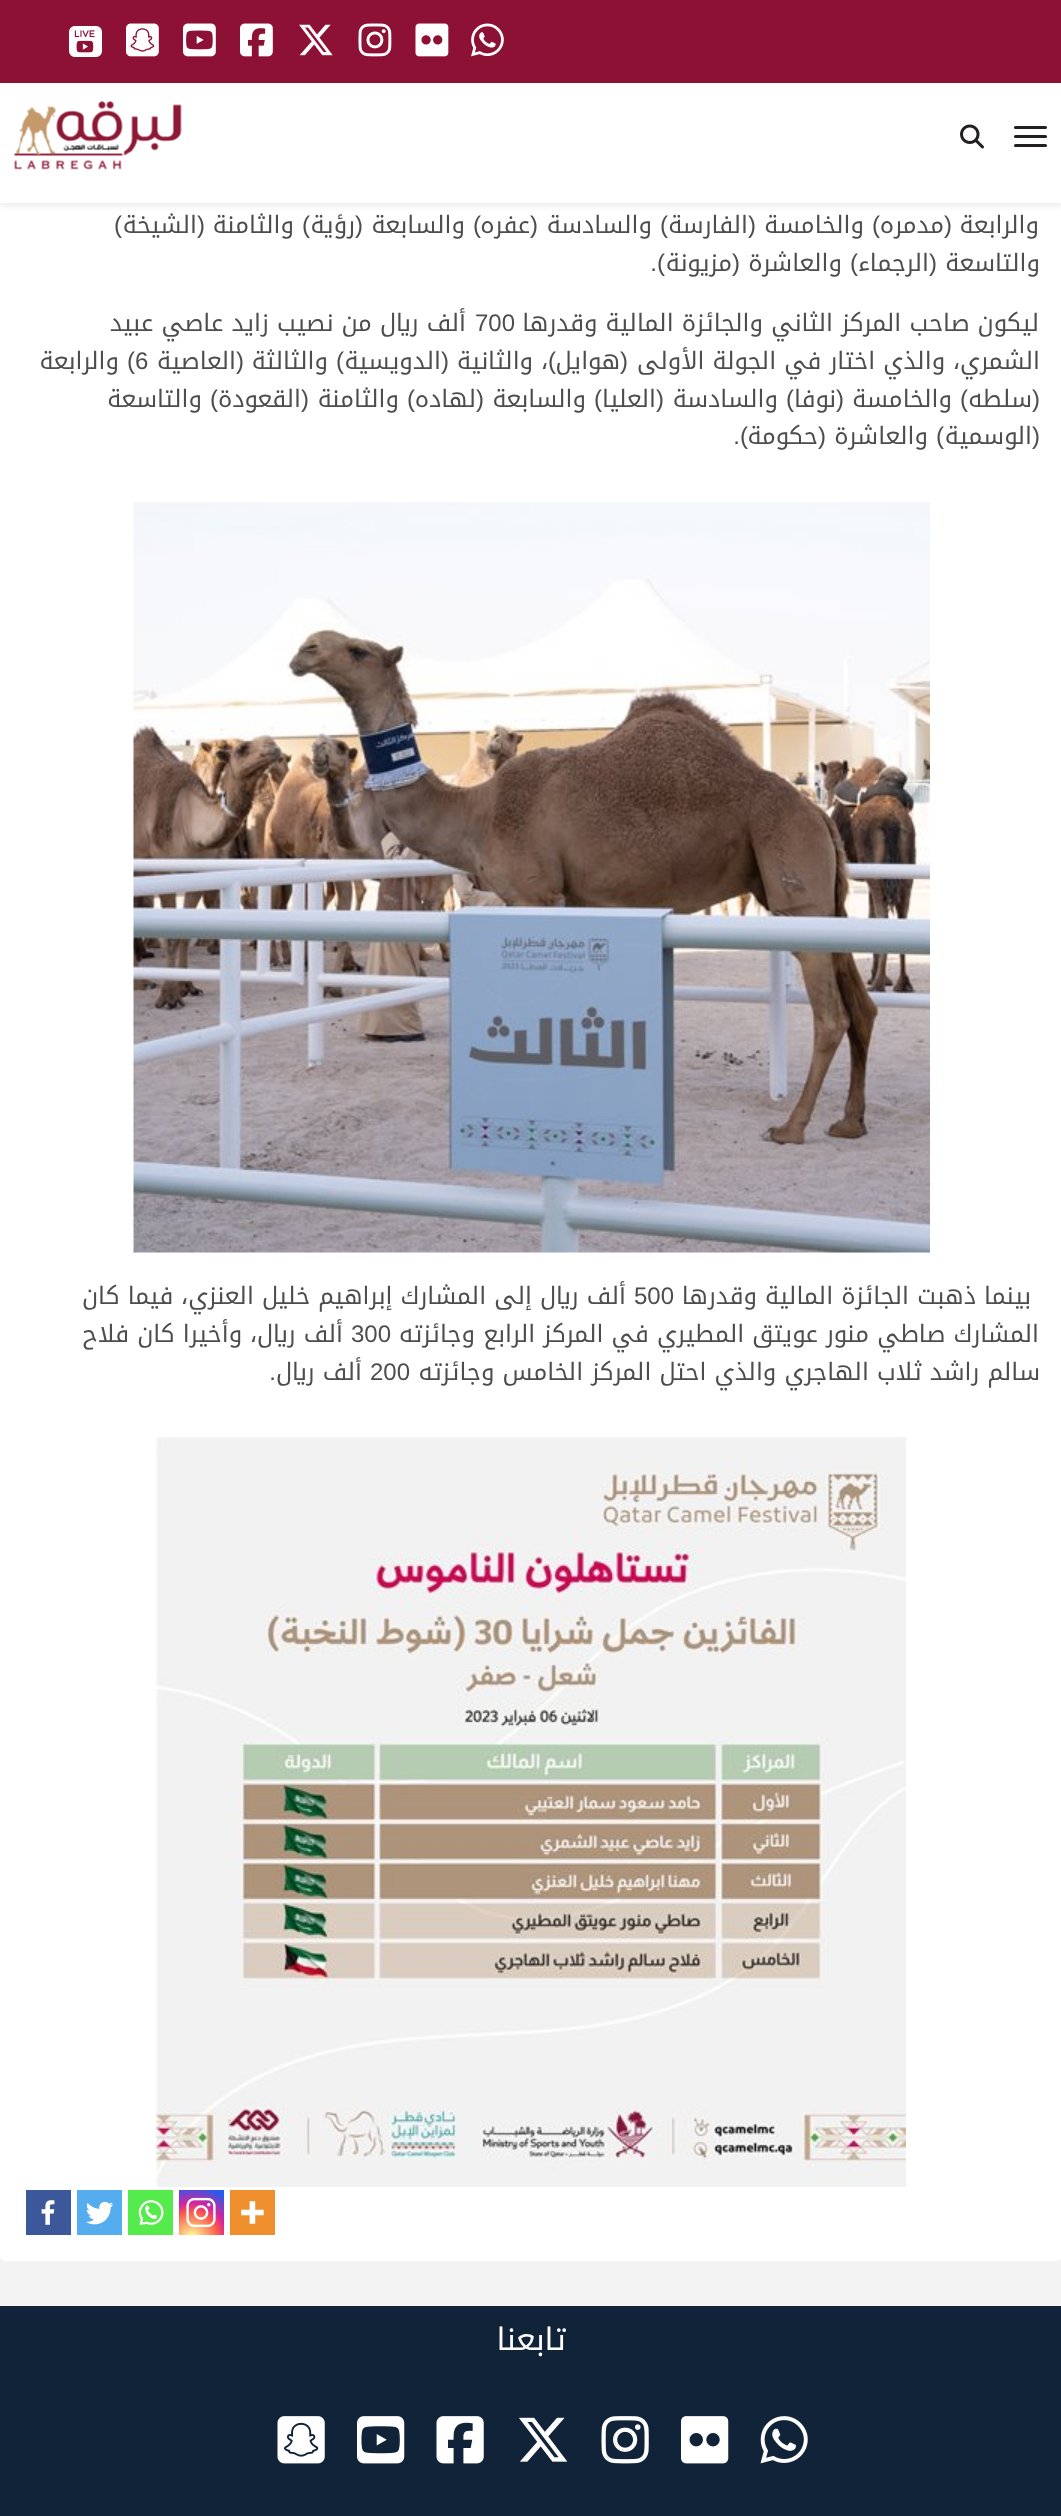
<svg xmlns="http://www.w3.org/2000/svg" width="1061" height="2516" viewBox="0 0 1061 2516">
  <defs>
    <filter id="blur1" x="-50%" y="-200%" width="200%" height="500%"><feGaussianBlur stdDeviation="3"/></filter>
    <radialGradient id="g1" gradientUnits="userSpaceOnUse" cx="192" cy="2238" r="58"><stop offset="0" stop-color="#fdf497"/><stop offset="0.05" stop-color="#fdf497"/><stop offset="0.45" stop-color="#fd5949"/><stop offset="0.6" stop-color="#d6249f"/><stop offset="0.9" stop-color="#285aeb"/></radialGradient>
  </defs>
  <rect width="100%" height="100%" fill="#f3f3f3"/>
  <rect x="0" y="-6" width="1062" height="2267" rx="6" fill="#ffffff"/>
  <rect x="0" y="3" width="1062" height="203" fill="#000000" fill-opacity="0.08" filter="url(#blur1)"/>
  <rect x="0" y="83" width="1061" height="120" fill="#ffffff"/>
  <rect x="0" y="0" width="1061" height="83" fill="#8d1135"/>
  <image x="471" y="23" width="33" height="34" href="img1.png"/>
  <image x="415" y="23" width="34" height="34" href="img2.png"/>
  <image x="358" y="23" width="34" height="34" href="img3.png"/>
  <image x="299" y="24" width="34" height="32" href="img4.png"/>
  <image x="240" y="23" width="33" height="34" href="img5.png"/>
  <image x="183" y="23" width="33" height="34" href="img6.png"/>
  <image x="126" y="23" width="33" height="34" href="img7.png"/>
  <image x="69" y="26" width="33" height="31" href="img8.png"/>
  <rect x="1014" y="126" width="33" height="3" rx="1.5" fill="#231f20"/>
  <rect x="1014" y="135" width="33" height="3" rx="1.5" fill="#231f20"/>
  <rect x="1014" y="144" width="33" height="3" rx="1.5" fill="#231f20"/>
  <image x="960" y="124" width="24" height="25" href="img9.png"/>
  <image x="14" y="101" width="168" height="69" href="img10.png"/>
  <text x="1039" y="233" font-family="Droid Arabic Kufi" font-size="24" direction="rtl" fill="#4d4d4d">والرابعة</text>
  <text x="952" y="233" font-family="Liberation Sans" font-size="24" direction="rtl" fill="#4d4d4d">(</text>
  <text x="944" y="233" font-family="Droid Arabic Kufi" font-size="24" direction="rtl" fill="#4d4d4d">مدمره</text>
  <text x="880" y="233" font-family="Liberation Sans" font-size="24" direction="rtl" fill="#4d4d4d">)</text>
  <text x="864" y="233" font-family="Droid Arabic Kufi" font-size="24" direction="rtl" fill="#4d4d4d">والخامسة</text>
  <text x="756" y="233" font-family="Liberation Sans" font-size="24" direction="rtl" fill="#4d4d4d">(</text>
  <text x="748" y="233" font-family="Droid Arabic Kufi" font-size="24" direction="rtl" fill="#4d4d4d">الفارسة</text>
  <text x="668" y="233" font-family="Liberation Sans" font-size="24" direction="rtl" fill="#4d4d4d">)</text>
  <text x="652" y="233" font-family="Droid Arabic Kufi" font-size="24" direction="rtl" fill="#4d4d4d">والسادسة</text>
  <text x="538" y="233" font-family="Liberation Sans" font-size="24" direction="rtl" fill="#4d4d4d">(</text>
  <text x="530" y="233" font-family="Droid Arabic Kufi" font-size="24" direction="rtl" fill="#4d4d4d">عفره</text>
  <text x="481" y="233" font-family="Liberation Sans" font-size="24" direction="rtl" fill="#4d4d4d">)</text>
  <text x="465" y="233" font-family="Droid Arabic Kufi" font-size="24" direction="rtl" fill="#4d4d4d">والسابعة</text>
  <text x="363" y="233" font-family="Liberation Sans" font-size="24" direction="rtl" fill="#4d4d4d">(</text>
  <text x="355" y="233" font-family="Droid Arabic Kufi" font-size="24" direction="rtl" fill="#4d4d4d">رؤية</text>
  <text x="310" y="233" font-family="Liberation Sans" font-size="24" direction="rtl" fill="#4d4d4d">)</text>
  <text x="294" y="233" font-family="Droid Arabic Kufi" font-size="24" direction="rtl" fill="#4d4d4d">والثامنة</text>
  <text x="205" y="233" font-family="Liberation Sans" font-size="24" direction="rtl" fill="#4d4d4d">(</text>
  <text x="197" y="233" font-family="Droid Arabic Kufi" font-size="24" direction="rtl" fill="#4d4d4d">الشيخة</text>
  <text x="122" y="233" font-family="Liberation Sans" font-size="24" direction="rtl" fill="#4d4d4d">)</text>
  <text x="1040" y="271" font-family="Droid Arabic Kufi" font-size="24" direction="rtl" fill="#4d4d4d">والتاسعة</text>
  <text x="937" y="271" font-family="Liberation Sans" font-size="24" direction="rtl" fill="#4d4d4d">(</text>
  <text x="929" y="271" font-family="Droid Arabic Kufi" font-size="24" direction="rtl" fill="#4d4d4d">الرجماء</text>
  <text x="858" y="271" font-family="Liberation Sans" font-size="24" direction="rtl" fill="#4d4d4d">)</text>
  <text x="842" y="271" font-family="Droid Arabic Kufi" font-size="24" direction="rtl" fill="#4d4d4d">والعاشرة</text>
  <text x="740" y="271" font-family="Liberation Sans" font-size="24" direction="rtl" fill="#4d4d4d">(</text>
  <text x="732" y="271" font-family="Droid Arabic Kufi" font-size="24" direction="rtl" fill="#4d4d4d">مزيونة</text>
  <text x="665" y="271" font-family="Liberation Sans" font-size="24" direction="rtl" fill="#4d4d4d">).</text>
  <text x="1039" y="331" font-family="Droid Arabic Kufi" font-size="24" direction="rtl" fill="#4d4d4d">ليكون صاحب المركز الثاني والجائزة المالية وقدرها</text>
  <text x="475" y="331" font-family="Liberation Sans" font-size="24" fill="#4d4d4d">700</text>
  <text x="466" y="331" font-family="Droid Arabic Kufi" font-size="24" direction="rtl" fill="#4d4d4d">ألف ريال من نصيب زايد عاصي عبيد</text>
  <text x="1040" y="369" font-family="Droid Arabic Kufi" font-size="24" direction="rtl" fill="#4d4d4d">الشمري، والذي اختار في الجولة الأولى</text>
  <text x="628" y="369" font-family="Liberation Sans" font-size="24" direction="rtl" fill="#4d4d4d">(</text>
  <text x="620" y="369" font-family="Droid Arabic Kufi" font-size="24" direction="rtl" fill="#4d4d4d">هوايل</text>
  <text x="556" y="369" font-family="Liberation Sans" font-size="24" direction="rtl" fill="#4d4d4d">)</text>
  <text x="548" y="369" font-family="Droid Arabic Kufi" font-size="24" direction="rtl" fill="#4d4d4d">، والثانية</text>
  <text x="449" y="369" font-family="Liberation Sans" font-size="24" direction="rtl" fill="#4d4d4d">(</text>
  <text x="441" y="369" font-family="Droid Arabic Kufi" font-size="24" direction="rtl" fill="#4d4d4d">الدويسية</text>
  <text x="344" y="369" font-family="Liberation Sans" font-size="24" direction="rtl" fill="#4d4d4d">)</text>
  <text x="328" y="369" font-family="Droid Arabic Kufi" font-size="24" direction="rtl" fill="#4d4d4d">والثالثة</text>
  <text x="244" y="369" font-family="Liberation Sans" font-size="24" direction="rtl" fill="#4d4d4d">(</text>
  <text x="236" y="369" font-family="Droid Arabic Kufi" font-size="24" direction="rtl" fill="#4d4d4d">العاصية</text>
  <text x="135" y="369" font-family="Liberation Sans" font-size="24" fill="#4d4d4d">6</text>
  <text x="135" y="369" font-family="Liberation Sans" font-size="24" direction="rtl" fill="#4d4d4d">)</text>
  <text x="119" y="369" font-family="Droid Arabic Kufi" font-size="24" direction="rtl" fill="#4d4d4d">والرابعة</text>
  <text x="1040" y="407" font-family="Liberation Sans" font-size="24" direction="rtl" fill="#4d4d4d">(</text>
  <text x="1032" y="407" font-family="Droid Arabic Kufi" font-size="24" direction="rtl" fill="#4d4d4d">سلطه</text>
  <text x="968" y="407" font-family="Liberation Sans" font-size="24" direction="rtl" fill="#4d4d4d">)</text>
  <text x="952" y="407" font-family="Droid Arabic Kufi" font-size="24" direction="rtl" fill="#4d4d4d">والخامسة</text>
  <text x="844" y="407" font-family="Liberation Sans" font-size="24" direction="rtl" fill="#4d4d4d">(</text>
  <text x="836" y="407" font-family="Droid Arabic Kufi" font-size="24" direction="rtl" fill="#4d4d4d">نوفا</text>
  <text x="794" y="407" font-family="Liberation Sans" font-size="24" direction="rtl" fill="#4d4d4d">)</text>
  <text x="778" y="407" font-family="Droid Arabic Kufi" font-size="24" direction="rtl" fill="#4d4d4d">والسادسة</text>
  <text x="664" y="407" font-family="Liberation Sans" font-size="24" direction="rtl" fill="#4d4d4d">(</text>
  <text x="656" y="407" font-family="Droid Arabic Kufi" font-size="24" direction="rtl" fill="#4d4d4d">العليا</text>
  <text x="602" y="407" font-family="Liberation Sans" font-size="24" direction="rtl" fill="#4d4d4d">)</text>
  <text x="586" y="407" font-family="Droid Arabic Kufi" font-size="24" direction="rtl" fill="#4d4d4d">والسابعة</text>
  <text x="484" y="407" font-family="Liberation Sans" font-size="24" direction="rtl" fill="#4d4d4d">(</text>
  <text x="476" y="407" font-family="Droid Arabic Kufi" font-size="24" direction="rtl" fill="#4d4d4d">لهاده</text>
  <text x="415" y="407" font-family="Liberation Sans" font-size="24" direction="rtl" fill="#4d4d4d">)</text>
  <text x="399" y="407" font-family="Droid Arabic Kufi" font-size="24" direction="rtl" fill="#4d4d4d">والثامنة</text>
  <text x="309" y="407" font-family="Liberation Sans" font-size="24" direction="rtl" fill="#4d4d4d">(</text>
  <text x="301" y="407" font-family="Droid Arabic Kufi" font-size="24" direction="rtl" fill="#4d4d4d">القعودة</text>
  <text x="218" y="407" font-family="Liberation Sans" font-size="24" direction="rtl" fill="#4d4d4d">)</text>
  <text x="202" y="407" font-family="Droid Arabic Kufi" font-size="24" direction="rtl" fill="#4d4d4d">والتاسعة</text>
  <text x="1040" y="444" font-family="Liberation Sans" font-size="24" direction="rtl" fill="#4d4d4d">(</text>
  <text x="1032" y="444" font-family="Droid Arabic Kufi" font-size="24" direction="rtl" fill="#4d4d4d">الوسمية</text>
  <text x="944" y="444" font-family="Liberation Sans" font-size="24" direction="rtl" fill="#4d4d4d">)</text>
  <text x="928" y="444" font-family="Droid Arabic Kufi" font-size="24" direction="rtl" fill="#4d4d4d">والعاشرة</text>
  <text x="826" y="444" font-family="Liberation Sans" font-size="24" direction="rtl" fill="#4d4d4d">(</text>
  <text x="818" y="444" font-family="Droid Arabic Kufi" font-size="24" direction="rtl" fill="#4d4d4d">حكومة</text>
  <text x="748" y="444" font-family="Liberation Sans" font-size="24" direction="rtl" fill="#4d4d4d">).</text>
  <image x="133" y="502" width="797" height="751" href="img11.png"/>
  <text x="1031" y="1304" font-family="Droid Arabic Kufi" font-size="24" direction="rtl" fill="#4d4d4d">بينما ذهبت الجائزة المالية وقدرها</text>
  <text x="634" y="1304" font-family="Liberation Sans" font-size="24" fill="#4d4d4d">500</text>
  <text x="626" y="1304" font-family="Droid Arabic Kufi" font-size="24" direction="rtl" fill="#4d4d4d">ألف ريال إلى المشارك إبراهيم خليل العنزي، فيما كان</text>
  <text x="1039" y="1342" font-family="Droid Arabic Kufi" font-size="24" direction="rtl" fill="#4d4d4d">المشارك صاطي منور عويتق المطيري في المركز الرابع وجائزته</text>
  <text x="351" y="1342" font-family="Liberation Sans" font-size="24" fill="#4d4d4d">300</text>
  <text x="343" y="1342" font-family="Droid Arabic Kufi" font-size="24" direction="rtl" fill="#4d4d4d">ألف ريال، وأخيرا كان فلاح</text>
  <text x="1040" y="1380" font-family="Droid Arabic Kufi" font-size="24" direction="rtl" fill="#4d4d4d">سالم راشد ثلاب الهاجري والذي احتل المركز الخامس وجائزته</text>
  <text x="370" y="1380" font-family="Liberation Sans" font-size="24" fill="#4d4d4d">200</text>
  <text x="362" y="1380" font-family="Droid Arabic Kufi" font-size="24" direction="rtl" fill="#4d4d4d">ألف ريال</text>
  <text x="276" y="1380" font-family="Liberation Sans" font-size="24" direction="rtl" fill="#4d4d4d">.</text>
  <image x="156" y="1437" width="750" height="750" href="img12.png"/>
  <rect x="230" y="2190" width="45" height="45" fill="#ee8e2d"/>
  <image x="241" y="2201" width="23" height="23" href="img13.png"/>
  <rect x="179" y="2190" width="45" height="45" fill="url(#g1)"/>
  <image x="186" y="2197" width="30" height="31" href="img14.png"/>
  <rect x="128" y="2190" width="45" height="45" fill="#55eb4c"/>
  <image x="138" y="2200" width="26" height="26" href="img15.png"/>
  <rect x="77" y="2190" width="45" height="45" fill="#55acee"/>
  <image x="86" y="2201" width="28" height="24" href="img16.png"/>
  <rect x="26" y="2190" width="45" height="45" fill="#3c589a"/>
  <image x="41" y="2200" width="14" height="25" href="img17.png"/>
  <rect x="0" y="2306" width="1061" height="210" fill="#102338"/>
  <text x="566" y="2350" font-family="Droid Arabic Kufi" font-size="31" direction="rtl" fill="#ffffff">تابعنا</text>
  <image x="760" y="2416" width="48" height="48" href="img18.png"/>
  <image x="681" y="2416" width="48" height="48" href="img19.png"/>
  <image x="601" y="2416" width="48" height="48" href="img20.png"/>
  <image x="519" y="2417" width="49" height="45" href="img21.png"/>
  <image x="436" y="2416" width="48" height="48" href="img22.png"/>
  <image x="357" y="2416" width="48" height="48" href="img23.png"/>
  <image x="277" y="2416" width="48" height="48" href="img24.png"/>
</svg>
